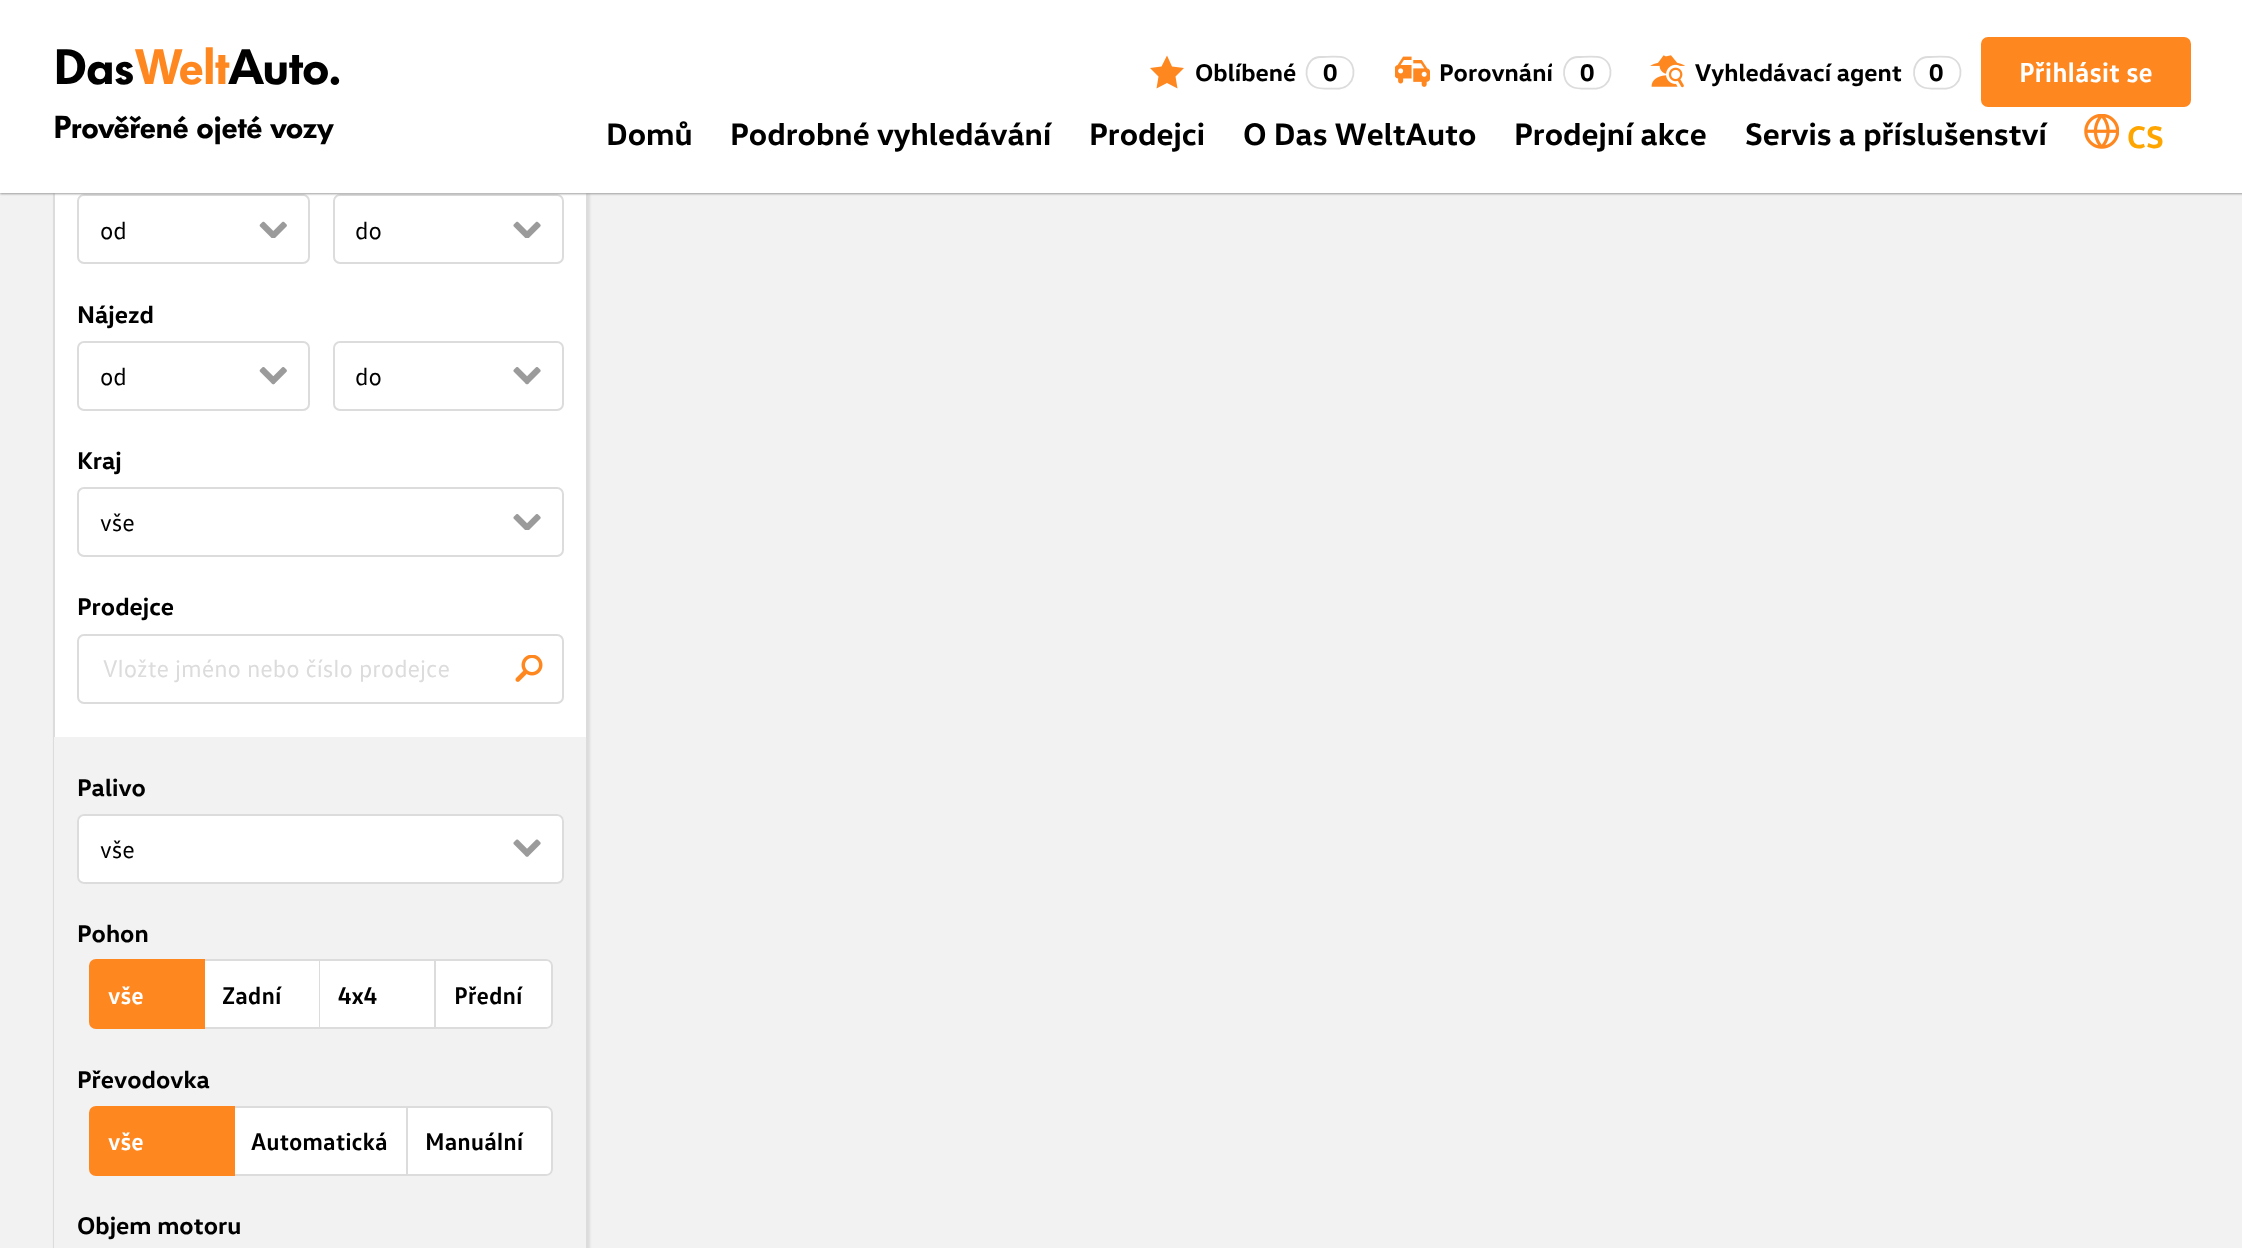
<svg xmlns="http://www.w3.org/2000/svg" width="2242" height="1248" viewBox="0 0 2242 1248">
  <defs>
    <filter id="blur1" x="-50%" y="-200%" width="200%" height="500%"><feGaussianBlur stdDeviation="1"/></filter>
    <clipPath id="clip1"><rect x="1439" y="58" width="113" height="30"/></clipPath>
  </defs>
  <rect width="100%" height="100%" fill="#f2f2f2"/>
  <rect x="54" y="-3" width="536" height="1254" fill="#dcdcdc" filter="url(#blur1)"/>
  <rect x="55" y="193" width="531" height="544" fill="#ffffff"/>
  <rect x="54" y="-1" width="533" height="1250" fill="none" stroke="#dcdcdc" stroke-width="2"/>
  <image x="259" y="221" width="28" height="17" href="img4.png"/>
  <rect x="78" y="195" width="231" height="68" rx="6" fill="none" stroke="#dcdcdc" stroke-width="2"/>
  <image x="513" y="221" width="28" height="17" href="img5.png"/>
  <rect x="334" y="195" width="229" height="68" rx="6" fill="none" stroke="#dcdcdc" stroke-width="2"/>
  <rect x="0" y="2" width="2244" height="192" fill="#9b9b9b" filter="url(#blur1)"/>
  <rect x="0" y="0" width="2242" height="193" fill="#ffffff"/>
  <text x="53" y="84" font-family="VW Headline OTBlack" font-size="49" font-weight="900" letter-spacing="-1" fill="#000000">Das</text>
  <text x="134" y="84" font-family="VW Headline OTBlack" font-size="49" font-weight="900" letter-spacing="-1" fill="#ff8720">Welt</text>
  <text x="228" y="84" font-family="VW Headline OTBlack" font-size="49" font-weight="900" letter-spacing="-1" fill="#000000">Auto.</text>
  <text x="53" y="138" font-family="VW Headline OTBlack" font-size="31.5" font-weight="900" letter-spacing="-0.6" fill="#000000">Prověřené ojeté vozy</text>
  <path d="M1167 83L1156.5 88.5L1158.5 76.5L1150 68L1161.5 66.5L1167 55.5L1172 66.5L1184 68L1175.5 76.5L1177.5 88.5Z" fill="#ff8720" fill-rule="evenodd"/>
  <text x="1195" y="81" font-family="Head" font-size="24.5" font-weight="bold" fill="#000000">Oblíbené</text>
  <path d="M1320.5 57C1327 57 1339.5 55.5 1345 58C1359 64.5 1355 87.5 1339.5 88.5C1334 88.5 1319.5 89.5 1315 87C1301.5 81 1304.5 57 1320.5 57Z" fill="none" stroke="#dcdcdc" stroke-width="1.8"/>
  <text x="1323" y="81" font-family="Head" font-size="24.5" font-weight="bold" fill="#000000">0</text>
  <image x="1395" y="56" width="35" height="31" href="img1.png"/>
  <g clip-path="url(#clip1)">
    <text x="1439" y="81" font-family="Head" font-size="24.5" font-weight="bold" fill="#000000">Porovnání</text>
  </g>
  <path d="M1578 57C1584 57 1596.5 55.5 1602 58C1616 64.5 1612 87.5 1596.5 88.5C1591 88.5 1577 89.5 1572.5 87C1559 81 1562 57 1578 57Z" fill="none" stroke="#dcdcdc" stroke-width="1.8"/>
  <text x="1580" y="81" font-family="Head" font-size="24.5" font-weight="bold" fill="#000000">0</text>
  <image x="1650" y="55" width="35" height="33" href="img2.png"/>
  <text x="1695" y="81" font-family="Head" font-size="24.5" font-weight="bold" fill="#000000">Vyhledávací agent</text>
  <path d="M1928 57C1934 57 1946.5 55.5 1952 58C1966 64.5 1962 87.5 1946.5 88.5C1941 88.5 1927 89.5 1922.5 87C1909 81 1912 57 1928 57Z" fill="none" stroke="#dcdcdc" stroke-width="1.8"/>
  <text x="1929" y="81" font-family="Head" font-size="24.5" font-weight="bold" fill="#000000">0</text>
  <rect x="1983" y="39" width="206" height="66" rx="5" fill="#ff8720" stroke="#ff8720" stroke-width="4"/>
  <text x="2019" y="82" font-family="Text" font-size="28" font-weight="bold" fill="#ffffff">Přihlásit se</text>
  <text x="606" y="145" font-family="Head" font-size="31.5" font-weight="bold" fill="#000000">Domů</text>
  <text x="730" y="145" font-family="Head" font-size="31.5" font-weight="bold" fill="#000000">Podrobné vyhledávání</text>
  <text x="1089" y="145" font-family="Head" font-size="31.5" font-weight="bold" fill="#000000">Prodejci</text>
  <text x="1243" y="145" font-family="Head" font-size="31.5" font-weight="bold" fill="#000000">O Das WeltAuto</text>
  <text x="1514" y="145" font-family="Head" font-size="31.5" font-weight="bold" fill="#000000">Prodejní akce</text>
  <text x="1745" y="145" font-family="Head" font-size="31.5" font-weight="bold" fill="#000000">Servis a příslušenství</text>
  <image x="2084" y="114" width="35" height="35" href="img3.png"/>
  <text x="2127" y="148" font-family="Head" font-size="31.5" font-weight="bold" fill="#ffa500">CS</text>
  <text x="100" y="239" font-family="Text" font-size="24.5" fill="#000000">od</text>
  <text x="355" y="239" font-family="Text" font-size="24.5" fill="#000000">do</text>
  <text x="77" y="323" font-family="Head" font-size="24.5" font-weight="bold" fill="#000000">Nájezd</text>
  <image x="259" y="367" width="28" height="18" href="img6.png"/>
  <rect x="78" y="342" width="231" height="68" rx="6" fill="none" stroke="#dcdcdc" stroke-width="2"/>
  <text x="100" y="385" font-family="Text" font-size="24.5" fill="#000000">od</text>
  <image x="513" y="367" width="28" height="18" href="img7.png"/>
  <rect x="334" y="342" width="229" height="68" rx="6" fill="none" stroke="#dcdcdc" stroke-width="2"/>
  <text x="355" y="385" font-family="Text" font-size="24.5" fill="#000000">do</text>
  <text x="77" y="469" font-family="Head" font-size="24.5" font-weight="bold" fill="#000000">Kraj</text>
  <image x="513" y="514" width="28" height="16" href="img8.png"/>
  <rect x="78" y="488" width="485" height="68" rx="6" fill="none" stroke="#dcdcdc" stroke-width="2"/>
  <text x="100" y="531" font-family="Text" font-size="24.5" fill="#000000">vše</text>
  <text x="77" y="615" font-family="Head" font-size="24.5" font-weight="bold" fill="#000000">Prodejce</text>
  <rect x="78" y="635" width="485" height="68" rx="6" fill="none" stroke="#dcdcdc" stroke-width="2"/>
  <text x="103" y="677" font-family="Text" font-size="24.5" fill="#dcdcdc">Vložte jméno nebo číslo prodejce</text>
  <image x="515" y="655" width="28" height="27" href="img9.png"/>
  <rect x="54" y="737" width="532" height="511" fill="#f2f2f2"/>
  <text x="77" y="796" font-family="Head" font-size="24.5" font-weight="bold" fill="#000000">Palivo</text>
  <rect x="77" y="814" width="487" height="70" rx="7" fill="#ffffff"/>
  <image x="513" y="839" width="28" height="18" href="img10.png"/>
  <rect x="78" y="815" width="485" height="68" rx="6" fill="none" stroke="#dcdcdc" stroke-width="2"/>
  <text x="100" y="858" font-family="Text" font-size="24.5" fill="#000000">vše</text>
  <text x="77" y="942" font-family="Head" font-size="24.5" font-weight="bold" fill="#000000">Pohon</text>
  <path d="M96 960H204V1028H96C92.5 1028 90 1025.5 90 1022V966C90 962.5 92.5 960 96 960Z" fill="#ff8720" stroke="#ff8720" stroke-width="2"/>
  <text x="108" y="1004" font-family="Text" font-size="24.5" font-weight="bold" fill="#ffffff">vše</text>
  <rect x="205" y="961" width="114" height="66" fill="#ffffff"/>
  <rect x="205" y="959" width="231" height="2" fill="#dcdcdc"/>
  <rect x="319" y="959" width="1" height="70" fill="#dcdcdc"/>
  <rect x="205" y="1027" width="115" height="2" fill="#dcdcdc"/>
  <text x="222" y="1004" font-family="Text" font-size="24.5" font-weight="bold" fill="#000000">Zadní</text>
  <rect x="320" y="961" width="114" height="66" fill="#ffffff"/>
  <rect x="434" y="959" width="2" height="70" fill="#dcdcdc"/>
  <rect x="320" y="1027" width="116" height="2" fill="#dcdcdc"/>
  <text x="338" y="1004" font-family="Text" font-size="24.5" font-weight="bold" fill="#000000">4x4</text>
  <path d="M436 959H546C550 959 553 962 553 966V1022C553 1026 550 1029 546 1029H436Z" fill="#ffffff"/>
  <path d="M436 959H546C550 959 553 962 553 966V1022C553 1026 550 1029 546 1029H436ZM436 961H546C549 961 551 963 551 966V1022C551 1025 549 1027 546 1027H436Z" fill="#dcdcdc" fill-rule="evenodd"/>
  <text x="454" y="1004" font-family="Text" font-size="24.5" font-weight="bold" fill="#000000">Přední</text>
  <text x="77" y="1088" font-family="Head" font-size="24.5" font-weight="bold" fill="#000000">Převodovka</text>
  <path d="M96 1107H234V1175H96C92.5 1175 90 1172.5 90 1169V1113C90 1109.5 92.5 1107 96 1107Z" fill="#ff8720" stroke="#ff8720" stroke-width="2"/>
  <text x="108" y="1150" font-family="Text" font-size="24.5" font-weight="bold" fill="#ffffff">vše</text>
  <rect x="235" y="1108" width="171" height="66" fill="#ffffff"/>
  <rect x="235" y="1106" width="173" height="2" fill="#dcdcdc"/>
  <rect x="406" y="1106" width="2" height="70" fill="#dcdcdc"/>
  <rect x="235" y="1174" width="173" height="2" fill="#dcdcdc"/>
  <text x="251" y="1150" font-family="Text" font-size="24.5" font-weight="bold" fill="#000000">Automatická</text>
  <path d="M408 1106H546C550 1106 553 1109 553 1113V1169C553 1173 550 1176 546 1176H408Z" fill="#ffffff"/>
  <path d="M408 1106H546C550 1106 553 1109 553 1113V1169C553 1173 550 1176 546 1176H408ZM408 1108H546C549 1108 551 1110 551 1113V1169C551 1172 549 1174 546 1174H408Z" fill="#dcdcdc" fill-rule="evenodd"/>
  <text x="425" y="1150" font-family="Text" font-size="24.5" font-weight="bold" fill="#000000">Manuální</text>
  <text x="77" y="1234" font-family="Head" font-size="24.5" font-weight="bold" fill="#000000">Objem motoru</text>
</svg>
